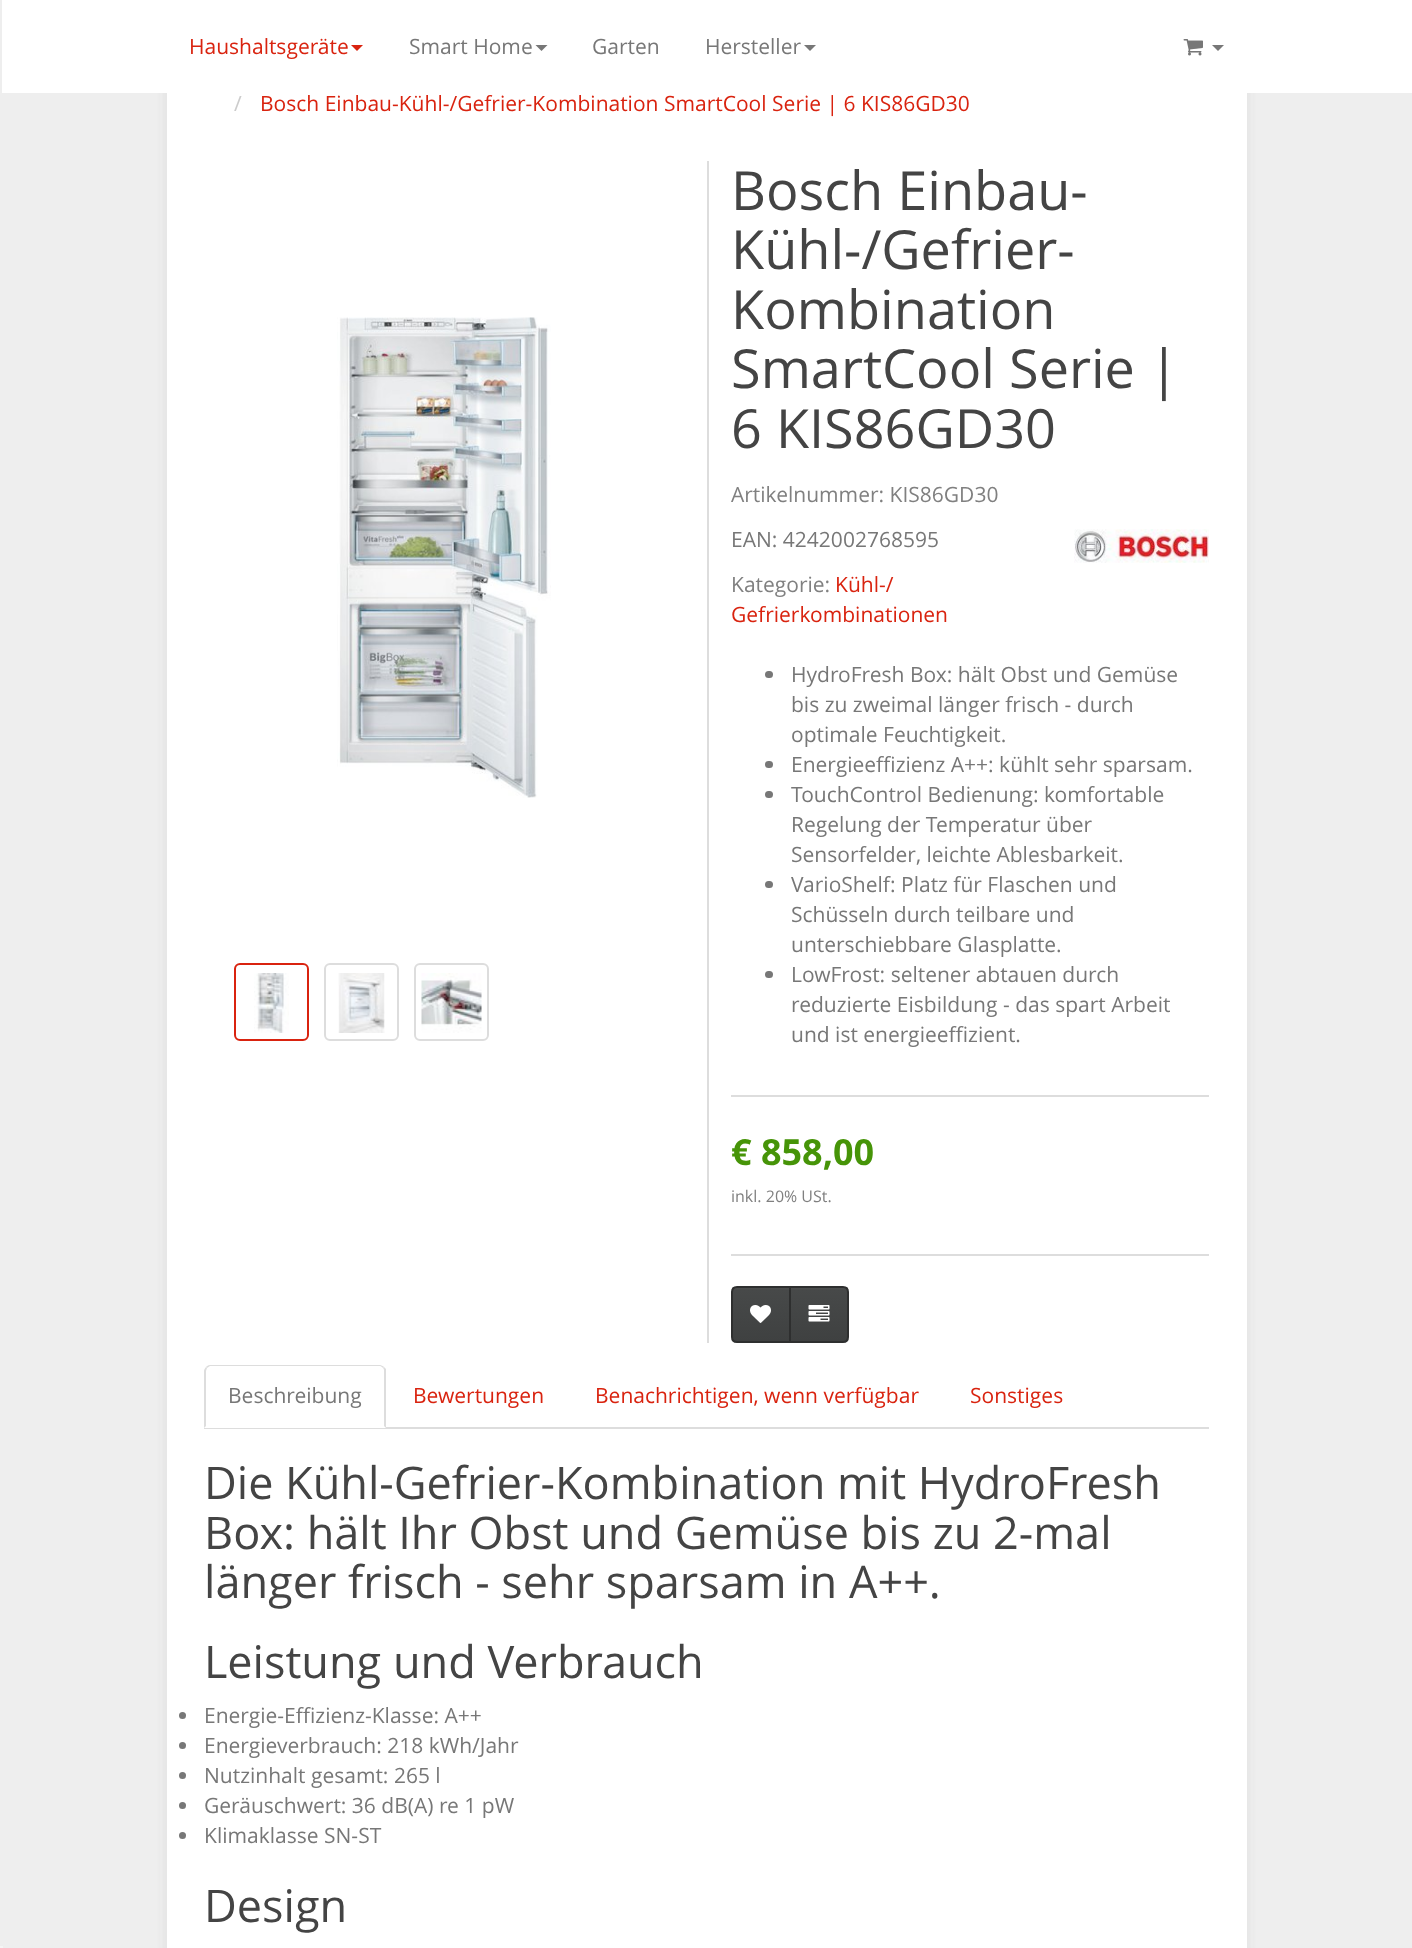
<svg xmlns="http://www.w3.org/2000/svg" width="1412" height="1948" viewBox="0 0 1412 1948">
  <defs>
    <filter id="blur1" x="-50%" y="-200%" width="200%" height="500%"><feGaussianBlur stdDeviation="4"/></filter>
    <clipPath id="clip1"><path d="M737 1286H791V1343H737C733.5 1343 731 1340.5 731 1337V1292C731 1288.5 733.5 1286 737 1286Z"/></clipPath>
    <linearGradient id="g1" gradientUnits="userSpaceOnUse" x1="761" y1="1287" x2="761" y2="1341"><stop offset="0" stop-color="#4f5151"/><stop offset="0.06" stop-color="#474949"/><stop offset="1" stop-color="#3f4141"/></linearGradient>
    <clipPath id="clip2"><path d="M789 1286H843C846.5 1286 849 1288.5 849 1292V1337C849 1340.5 846.5 1343 843 1343H789Z"/></clipPath>
    <linearGradient id="g2" gradientUnits="userSpaceOnUse" x1="819" y1="1287" x2="819" y2="1341"><stop offset="0" stop-color="#4f5151"/><stop offset="0.06" stop-color="#474949"/><stop offset="1" stop-color="#3f4141"/></linearGradient>
  </defs>
  <rect width="100%" height="100%" fill="#eeeeee"/>
  <rect x="165" y="8" width="1083" height="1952" fill="#6a6a6a" fill-opacity="0.1" filter="url(#blur1)"/>
  <rect x="2" y="0" width="1410" height="93" fill="#ffffff"/>
  <text x="189" y="54" font-family="Open Sans" font-size="21" fill="#d9230f">Haushaltsgeräte</text>
  <path d="M351 45H363L357 51Z" fill="#d9230f"/>
  <text x="409" y="54" font-family="Open Sans" font-size="21" fill="#777777">Smart Home</text>
  <path d="M535.5 45H547.5L541.5 51Z" fill="#777777"/>
  <text x="592" y="54" font-family="Open Sans" font-size="21" fill="#777777">Garten</text>
  <text x="705" y="54" font-family="Open Sans" font-size="21" fill="#777777">Hersteller</text>
  <path d="M804 45H816L810 51Z" fill="#777777"/>
  <image x="1183" y="39" width="20" height="17" href="img1.png"/>
  <path d="M1212 45H1224L1218 51Z" fill="#777777"/>
  <rect x="167" y="93" width="1080" height="1855" fill="#ffffff"/>
  <text x="234" y="111" font-family="Open Sans" font-size="21" fill="#cccccc">/</text>
  <text x="260" y="111" font-family="Open Sans" font-size="21" fill="#d9230f">Bosch Einbau-Kühl-/Gefrier-Kombination SmartCool Serie | 6 KIS86GD30</text>
  <image x="337" y="317" width="214" height="481" href="img2.png"/>
  <rect x="235" y="964" width="73" height="76" rx="5" fill="none" stroke="#d9230f" stroke-width="2"/>
  <image x="254" y="973" width="35" height="60" href="img3.png"/>
  <rect x="325" y="964" width="73" height="76" rx="5" fill="none" stroke="#dddddd" stroke-width="2"/>
  <image x="338" y="973" width="47" height="60" href="img4.png"/>
  <rect x="415" y="964" width="73" height="76" rx="5" fill="none" stroke="#dddddd" stroke-width="2"/>
  <image x="421" y="973" width="61" height="60" href="img5.png"/>
  <rect x="707" y="161" width="2" height="1182" fill="#dddddd"/>
  <text x="731" y="210" font-family="Open Sans" font-size="54" fill="#444444">Bosch Einbau-</text>
  <text x="731" y="269" font-family="Open Sans" font-size="54" fill="#444444">Kühl-/Gefrier-</text>
  <text x="731" y="329" font-family="Open Sans" font-size="54" fill="#444444">Kombination</text>
  <text x="731" y="388" font-family="Open Sans" font-size="54" fill="#444444">SmartCool Serie |</text>
  <text x="731" y="448" font-family="Open Sans" font-size="54" fill="#444444">6 KIS86GD30</text>
  <text x="731" y="502" font-family="Open Sans" font-size="21" fill="#808080">Artikelnummer: KIS86GD30</text>
  <text x="731" y="547" font-family="Open Sans" font-size="21" fill="#777777">EAN: 4242002768595</text>
  <text x="731" y="592" font-family="Open Sans" font-size="21" fill="#808080">Kategorie:</text>
  <text x="835" y="592" font-family="Open Sans" font-size="21" fill="#d9230f">Kühl-/</text>
  <text x="731" y="622" font-family="Open Sans" font-size="21" fill="#d9230f">Gefrierkombinationen</text>
  <image x="1074" y="529" width="135" height="34" href="img6.png"/>
  <rect x="765" y="671" width="8" height="7" rx="3.5" fill="#777777"/>
  <text x="791" y="682" font-family="Open Sans" font-size="21" fill="#777777">HydroFresh Box: hält Obst und Gemüse</text>
  <text x="791" y="712" font-family="Open Sans" font-size="21" fill="#777777">bis zu zweimal länger frisch - durch</text>
  <text x="791" y="742" font-family="Open Sans" font-size="21" fill="#777777">optimale Feuchtigkeit.</text>
  <rect x="765" y="761" width="8" height="7" rx="3.5" fill="#777777"/>
  <text x="791" y="772" font-family="Open Sans" font-size="21" fill="#777777">Energieeffizienz A++: kühlt sehr sparsam.</text>
  <rect x="765" y="791" width="8" height="7" rx="3.5" fill="#777777"/>
  <text x="791" y="802" font-family="Open Sans" font-size="21" fill="#777777">TouchControl Bedienung: komfortable</text>
  <text x="791" y="832" font-family="Open Sans" font-size="21" fill="#777777">Regelung der Temperatur über</text>
  <text x="791" y="862" font-family="Open Sans" font-size="21" fill="#777777">Sensorfelder, leichte Ablesbarkeit.</text>
  <rect x="765" y="881" width="8" height="7" rx="3.5" fill="#777777"/>
  <text x="791" y="892" font-family="Open Sans" font-size="21" fill="#777777">VarioShelf: Platz für Flaschen und</text>
  <text x="791" y="922" font-family="Open Sans" font-size="21" fill="#777777">Schüsseln durch teilbare und</text>
  <text x="791" y="952" font-family="Open Sans" font-size="21" fill="#777777">unterschiebbare Glasplatte.</text>
  <rect x="765" y="971" width="8" height="7" rx="3.5" fill="#777777"/>
  <text x="791" y="982" font-family="Open Sans" font-size="21" fill="#777777">LowFrost: seltener abtauen durch</text>
  <text x="791" y="1012" font-family="Open Sans" font-size="21" fill="#777777">reduzierte Eisbildung - das spart Arbeit</text>
  <text x="791" y="1042" font-family="Open Sans" font-size="21" fill="#777777">und ist energieeffizient.</text>
  <rect x="731" y="1095" width="478" height="2" fill="#dddddd"/>
  <text x="731" y="1165" font-family="Open Sans" font-size="36" font-weight="bold" fill="#469408">€ 858,00</text>
  <text x="731" y="1202" font-family="Open Sans" font-size="16" fill="#808080">inkl. 20% USt.</text>
  <rect x="731" y="1254" width="478" height="2" fill="#dddddd"/>
  <g clip-path="url(#clip1)">
    <rect x="732" y="1287" width="57" height="54" fill="url(#g1)"/>
  </g>
  <path d="M737 1287H790V1342H737C734 1342 732 1340 732 1337V1292C732 1289 734 1287 737 1287Z" fill="none" stroke="#2e2f2f" stroke-width="2"/>
  <image x="750" y="1305" width="21" height="18" href="img7.png"/>
  <g clip-path="url(#clip2)">
    <rect x="791" y="1287" width="57" height="54" fill="url(#g2)"/>
  </g>
  <path d="M790 1287H843C846 1287 848 1289 848 1292V1337C848 1340 846 1342 843 1342H790Z" fill="none" stroke="#2e2f2f" stroke-width="2"/>
  <image x="808" y="1305" width="22" height="17" href="img8.png"/>
  <rect x="204" y="1427" width="1005" height="2" fill="#dddddd"/>
  <path d="M210 1365H380C383.5 1365 386 1367.5 386 1371V1428H204V1371C204 1367.5 206.5 1365 210 1365Z" fill="#ffffff"/>
  <path d="M210 1365C208 1365 207 1366 206 1367L207 1368L210 1366H380C381 1366 382 1367 383 1368L384 1367C383 1366 381 1365 380 1365Z" fill="#dddddd"/>
  <path d="M386 1369V1428L384 1426V1371C384 1370 384 1369 383 1368L384 1367Z" fill="#dddddd"/>
  <path d="M204 1428L206 1426V1371L207 1368L206 1367C205 1368 204 1370 204 1371Z" fill="#dddddd"/>
  <text x="228" y="1403" font-family="Open Sans" font-size="21" fill="#777777">Beschreibung</text>
  <text x="413" y="1403" font-family="Open Sans" font-size="21" fill="#d9230f">Bewertungen</text>
  <text x="595" y="1403" font-family="Open Sans" font-size="21" fill="#d9230f">Benachrichtigen, wenn verfügbar</text>
  <text x="970" y="1403" font-family="Open Sans" font-size="21" fill="#d9230f">Sonstiges</text>
  <text x="204" y="1499" font-family="Open Sans" font-size="45" fill="#444444">Die Kühl-Gefrier-Kombination mit HydroFresh</text>
  <text x="204" y="1549" font-family="Open Sans" font-size="45" fill="#444444">Box: hält Ihr Obst und Gemüse bis zu 2-mal</text>
  <text x="204" y="1598" font-family="Open Sans" font-size="45" fill="#444444">länger frisch - sehr sparsam in A++.</text>
  <text x="204" y="1678" font-family="Open Sans" font-size="45" fill="#444444">Leistung und Verbrauch</text>
  <circle cx="182.5" cy="1715.5" r="3.5" fill="#777777"/>
  <text x="204" y="1723" font-family="Open Sans" font-size="21" fill="#777777">Energie-Effizienz-Klasse: A++</text>
  <circle cx="182.5" cy="1745.5" r="3.5" fill="#777777"/>
  <text x="204" y="1753" font-family="Open Sans" font-size="21" fill="#777777">Energieverbrauch: 218 kWh/Jahr</text>
  <circle cx="182.5" cy="1775.5" r="3.5" fill="#777777"/>
  <text x="204" y="1783" font-family="Open Sans" font-size="21" fill="#777777">Nutzinhalt gesamt: 265 l</text>
  <circle cx="182.5" cy="1805.5" r="3.5" fill="#777777"/>
  <text x="204" y="1813" font-family="Open Sans" font-size="21" fill="#777777">Geräuschwert: 36 dB(A) re 1 pW</text>
  <circle cx="182.5" cy="1835.5" r="3.5" fill="#777777"/>
  <text x="204" y="1843" font-family="Open Sans" font-size="21" fill="#777777">Klimaklasse SN-ST</text>
  <text x="204" y="1922" font-family="Open Sans" font-size="45" fill="#444444">Design</text>
  <rect x="0" y="1946" width="3" height="2" fill="#f5f5f5"/>
</svg>
